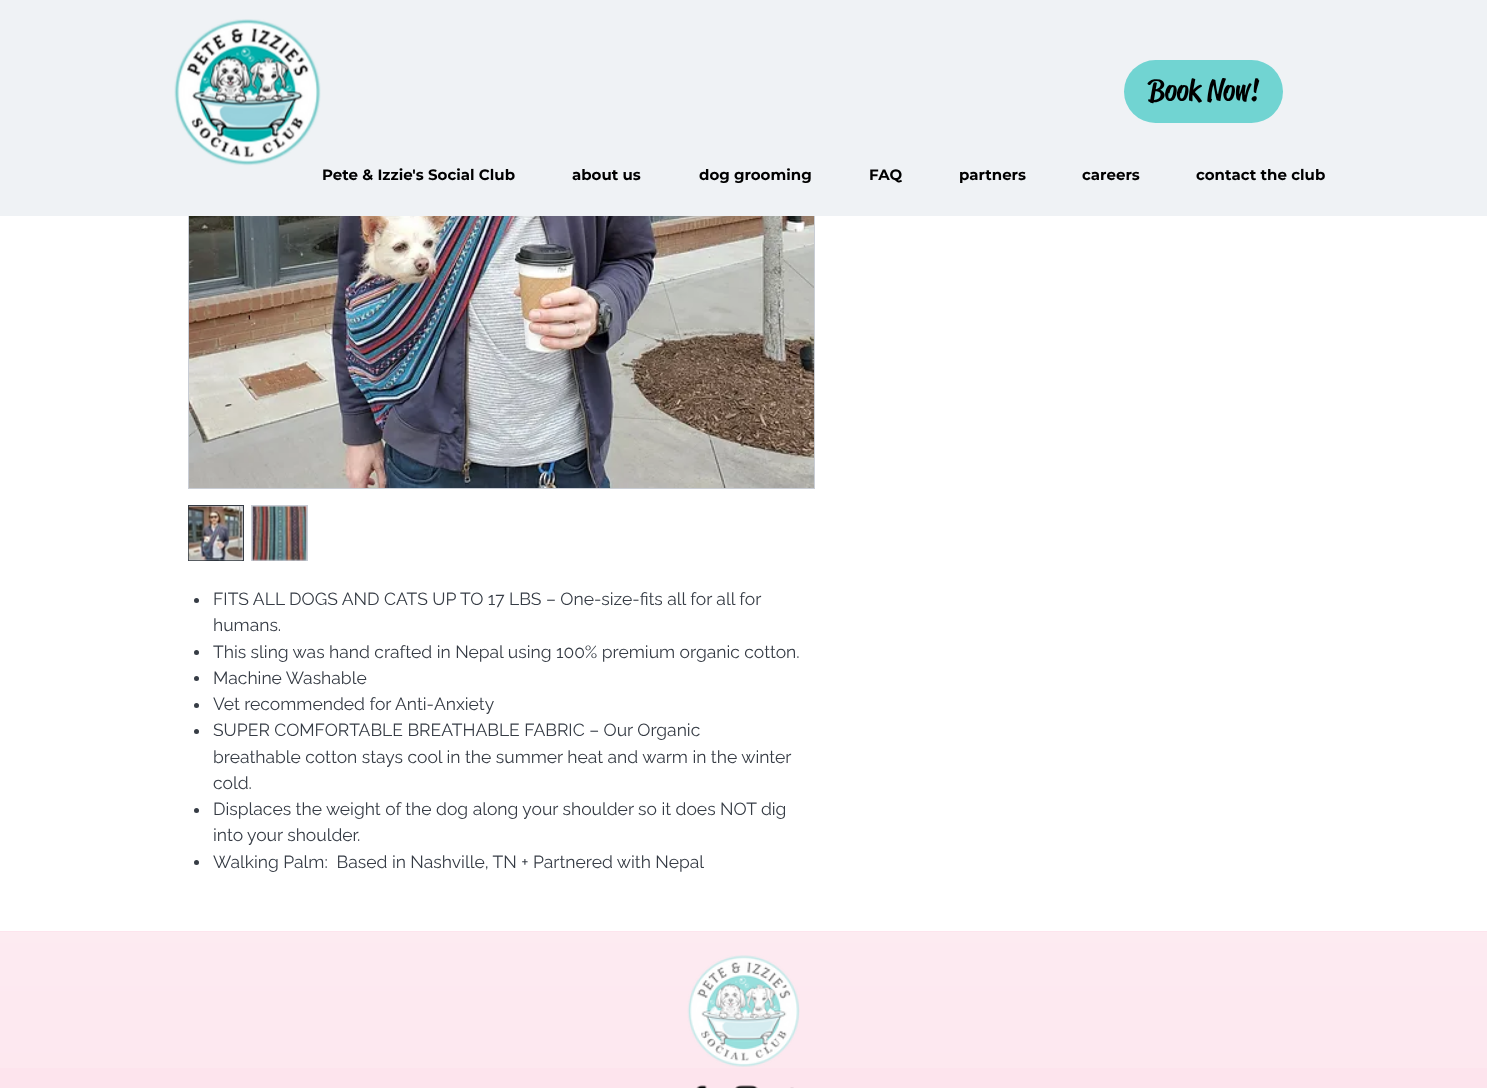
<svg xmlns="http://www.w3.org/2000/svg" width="1487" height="1088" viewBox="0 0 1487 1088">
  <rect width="100%" height="100%" fill="#ffffff"/>
  <rect x="188.5" y="-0.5" width="626" height="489" fill="none" stroke="#c9cdd5"/>
  <rect x="0" y="0" width="1487" height="216" fill="#eff2f5"/>
  <image x="174" y="19" width="147" height="147" href="img1.png"/>
  <rect x="1124" y="60" width="159" height="63" rx="31.5" fill="#71d4d2"/>
  <text x="1148" y="100" font-family="'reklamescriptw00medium'" font-size="29" font-weight="500" fill="#000000">Book Now!</text>
  <text x="322" y="180" font-family="Montserrat" font-size="15" font-weight="bold" fill="#000000">Pete &amp; Izzie's Social Club</text>
  <text x="572" y="180" font-family="Montserrat" font-size="15" font-weight="bold" fill="#000000">about us</text>
  <text x="699" y="180" font-family="Montserrat" font-size="15" font-weight="bold" fill="#000000">dog grooming</text>
  <text x="869" y="180" font-family="Montserrat" font-size="15" font-weight="bold" fill="#000000">FAQ</text>
  <text x="959" y="180" font-family="Montserrat" font-size="15" font-weight="bold" fill="#000000">partners</text>
  <text x="1082" y="180" font-family="Montserrat" font-size="15" font-weight="bold" fill="#000000">careers</text>
  <text x="1196" y="180" font-family="Montserrat" font-size="15" font-weight="bold" fill="#000000">contact the club</text>
  <image x="189" y="216" width="625" height="272" href="img2.png"/>
  <rect x="188.5" y="505.5" width="55" height="55" fill="#c9cdd5" stroke="#363c45"/>
  <image x="188" y="506" width="55" height="55" href="img3.png"/>
  <rect x="251" y="505" width="57" height="56" fill="#c9cdd5"/>
  <image x="252" y="506" width="55" height="55" href="img4.png"/>
  <circle cx="196.5" cy="600.5" r="2.5" fill="#363c45"/>
  <text x="213" y="605" font-family="Raleway" font-size="17.5" fill="#363c45">FITS ALL DOGS AND CATS UP TO 17 LBS – One-size-fits all for all for</text>
  <text x="213" y="631" font-family="Raleway" font-size="17.5" fill="#363c45">humans.</text>
  <circle cx="196.5" cy="652.5" r="2.5" fill="#363c45"/>
  <text x="213" y="658" font-family="Raleway" font-size="17.5" fill="#363c45">This sling was hand crafted in Nepal using 100% premium organic cotton.</text>
  <circle cx="196.5" cy="678.5" r="2.5" fill="#363c45"/>
  <text x="213" y="684" font-family="Raleway" font-size="17.5" fill="#363c45">Machine Washable</text>
  <circle cx="196.5" cy="705.5" r="2.5" fill="#363c45"/>
  <text x="213" y="710" font-family="Raleway" font-size="17.5" fill="#363c45">Vet recommended for Anti-Anxiety</text>
  <circle cx="196.5" cy="731.5" r="2.5" fill="#363c45"/>
  <text x="213" y="736" font-family="Raleway" font-size="17.5" fill="#363c45">SUPER COMFORTABLE BREATHABLE FABRIC – Our Organic</text>
  <text x="213" y="763" font-family="Raleway" font-size="17.5" fill="#363c45">breathable cotton stays cool in the summer heat and warm in the winter</text>
  <text x="213" y="789" font-family="Raleway" font-size="17.5" fill="#363c45">cold.</text>
  <circle cx="196.5" cy="810.5" r="2.5" fill="#363c45"/>
  <text x="213" y="815" font-family="Raleway" font-size="17.5" fill="#363c45">Displaces the weight of the dog along your shoulder so it does NOT dig</text>
  <text x="213" y="841" font-family="Raleway" font-size="17.5" fill="#363c45">into your shoulder.</text>
  <circle cx="196.5" cy="862.5" r="2.5" fill="#363c45"/>
  <text x="213" y="868" font-family="Raleway" font-size="17.5" fill="#363c45" xml:space="preserve">Walking Palm:  Based in Nashville, TN + Partnered with Nepal</text>
  <rect x="0" y="931" width="1487" height="157" fill="#fde4ed"/>
  <image x="0" y="932" width="1487" height="136" href="img5.png"/>
  <image x="687" y="955" width="113" height="112" href="img6.png"/>
  <image x="696" y="1085" width="11" height="3" href="img7.png"/>
  <image x="735" y="1085" width="23" height="3" href="img8.png"/>
  <image x="790" y="1087" width="4" height="1" href="img9.png"/>
</svg>
